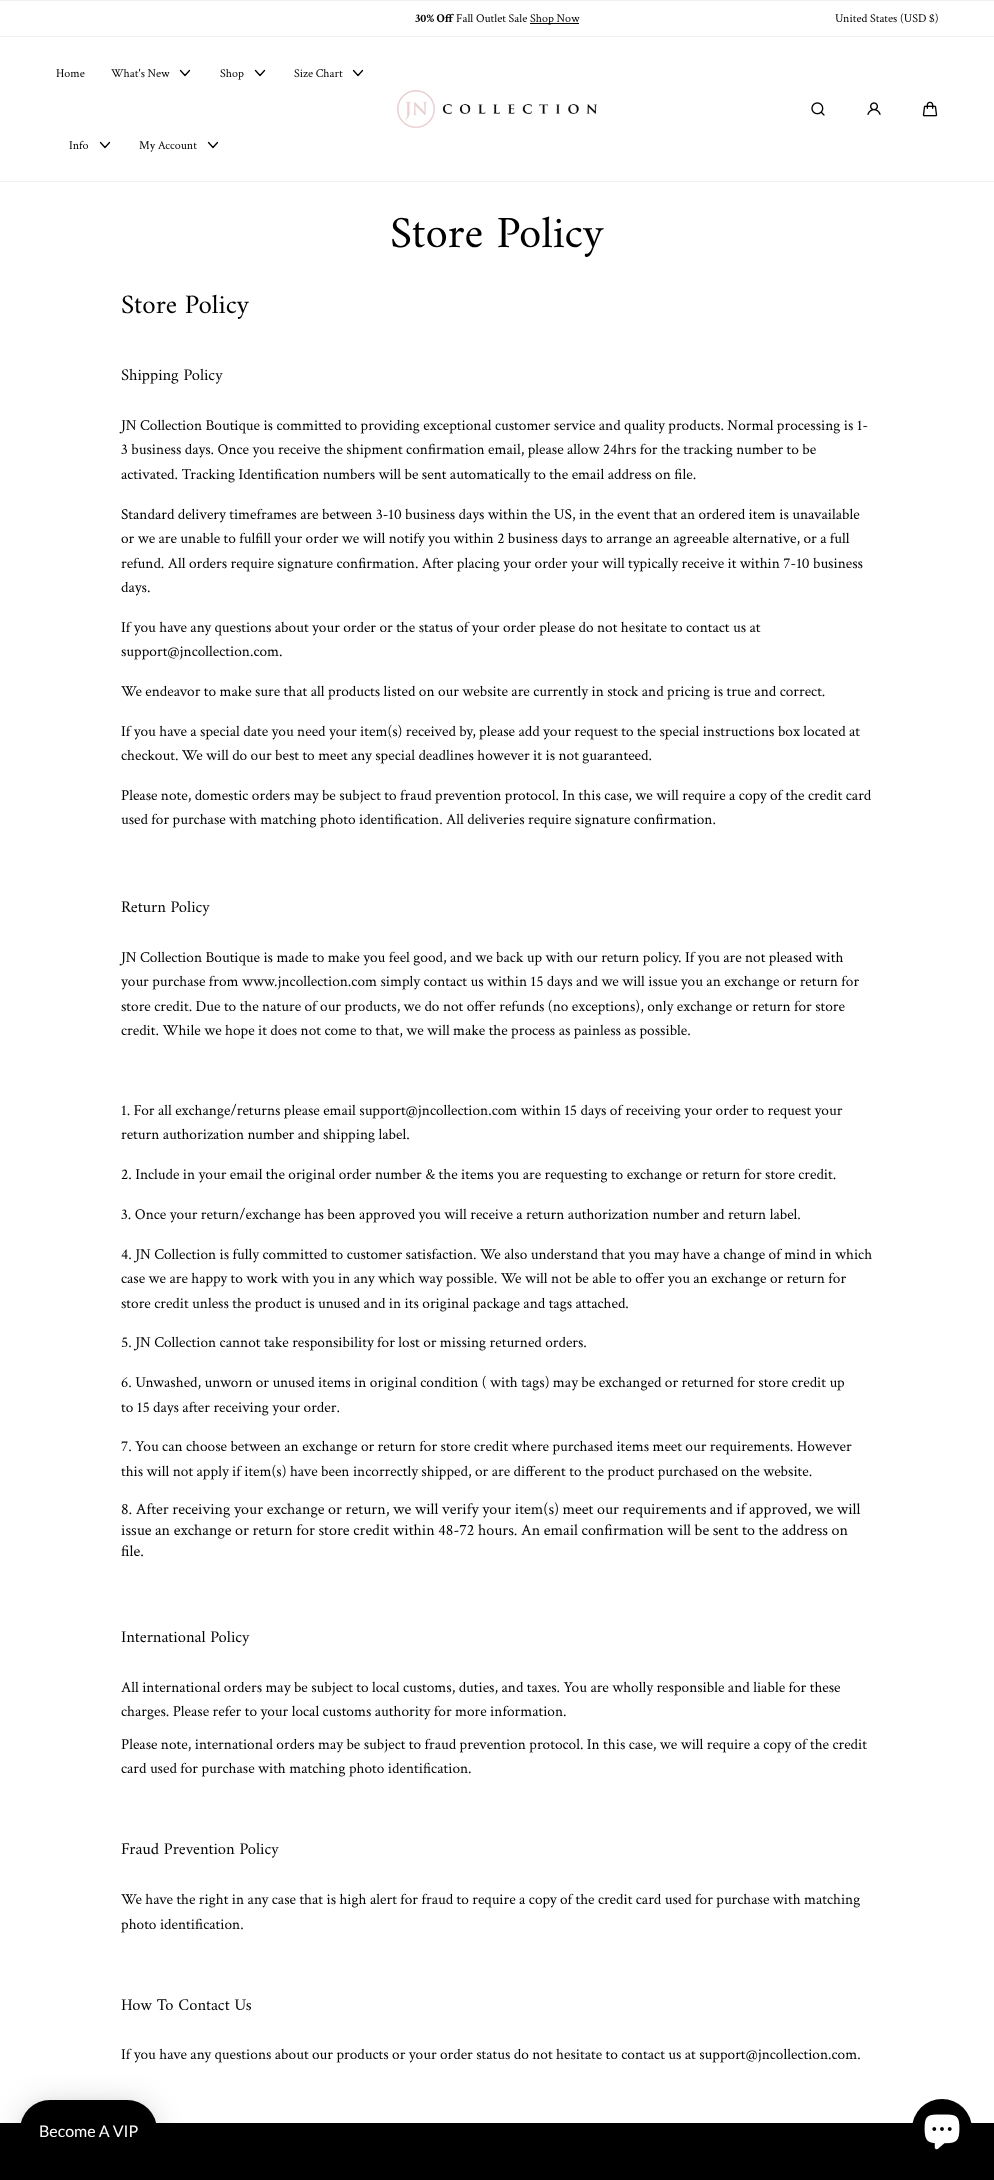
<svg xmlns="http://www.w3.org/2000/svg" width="994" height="2180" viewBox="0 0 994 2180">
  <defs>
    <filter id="blur1" x="-50%" y="-200%" width="200%" height="500%"><feGaussianBlur stdDeviation="15"/></filter>
    <filter id="blur2" x="-50%" y="-200%" width="200%" height="500%"><feGaussianBlur stdDeviation="3"/></filter>
  </defs>
  <rect width="100%" height="100%" fill="#ffffff"/>
  <rect x="0" y="0" width="994" height="1" fill="#f2f2f2"/>
  <rect x="0" y="36" width="994" height="1" fill="#f2f2f2"/>
  <text x="415" y="22" font-family="Crimson Text" font-size="12" font-weight="bold" fill="#000000">30% Off</text>
  <text x="456" y="22" font-family="Crimson Text" font-size="12" fill="#000000">Fall Outlet Sale</text>
  <rect x="530" y="23" width="49" height="1" fill="#000000"/>
  <text x="530" y="22" font-family="Crimson Text" font-size="12" fill="#000000">Shop Now</text>
  <text x="835" y="22" font-family="Crimson Text" font-size="12" fill="#000000">United States (USD $)</text>
  <rect x="0" y="181" width="994" height="1" fill="#f2f2f2"/>
  <text x="56" y="77" font-family="Crimson Text" font-size="12" fill="#000000">Home</text>
  <text x="111" y="77" font-family="Crimson Text" font-size="12" fill="#000000">What's New</text>
  <path d="M180.5 70.5L185 75.5L189.5 70.5" fill="none" stroke="#000000" stroke-width="1.3" stroke-linecap="round" stroke-linejoin="round"/>
  <text x="220" y="77" font-family="Crimson Text" font-size="12" fill="#000000">Shop</text>
  <path d="M255.5 70.5L260 75.5L264.5 70.5" fill="none" stroke="#000000" stroke-width="1.3" stroke-linecap="round" stroke-linejoin="round"/>
  <text x="294" y="77" font-family="Crimson Text" font-size="12" fill="#000000">Size Chart</text>
  <path d="M353.5 70.5L358 75.5L362.5 70.5" fill="none" stroke="#000000" stroke-width="1.3" stroke-linecap="round" stroke-linejoin="round"/>
  <text x="69" y="149" font-family="Crimson Text" font-size="12" fill="#000000">Info</text>
  <path d="M100.5 142.5L105 147.5L109.5 142.5" fill="none" stroke="#000000" stroke-width="1.3" stroke-linecap="round" stroke-linejoin="round"/>
  <text x="139" y="149" font-family="Crimson Text" font-size="12" fill="#000000">My Account</text>
  <path d="M208.5 142.5L213 147.5L217.5 142.5" fill="none" stroke="#000000" stroke-width="1.3" stroke-linecap="round" stroke-linejoin="round"/>
  <image x="397" y="90" width="200" height="38" href="img1.png"/>
  <image x="811" y="102" width="14" height="14" href="img2.png"/>
  <image x="867" y="102" width="14" height="13" href="img3.png"/>
  <image x="922" y="101" width="16" height="16" href="img4.png"/>
  <text x="390" y="247" font-family="Amiri" font-size="45" fill="#000000">Store Policy</text>
  <text x="121" y="313" font-family="Amiri" font-size="27" fill="#000000">Store Policy</text>
  <text x="121" y="380" font-family="Amiri" font-size="16.5" fill="#000000">Shipping Policy</text>
  <text x="121" y="430" font-family="Crimson Text" font-size="15.3" fill="#000000">JN Collection Boutique is committed to providing exceptional customer service and quality products. Normal processing is 1-</text>
  <text x="121" y="454" font-family="Crimson Text" font-size="15.3" fill="#000000">3 business days. Once you receive the shipment confirmation email, please allow 24hrs for the tracking number to be</text>
  <text x="121" y="479" font-family="Crimson Text" font-size="15.3" fill="#000000">activated. Tracking Identification numbers will be sent automatically to the email address on file.</text>
  <text x="121" y="519" font-family="Crimson Text" font-size="15.3" fill="#000000">Standard delivery timeframes are between 3-10 business days within the US, in the event that an ordered item is unavailable</text>
  <text x="121" y="543" font-family="Crimson Text" font-size="15.3" fill="#000000">or we are unable to fulfill your order we will notify you within 2 business days to arrange an agreeable alternative, or a full</text>
  <text x="121" y="568" font-family="Crimson Text" font-size="15.3" fill="#000000">refund. All orders require signature confirmation. After placing your order your will typically receive it within 7-10 business</text>
  <text x="121" y="592" font-family="Crimson Text" font-size="15.3" fill="#000000">days.</text>
  <text x="121" y="632" font-family="Crimson Text" font-size="15.3" fill="#000000">If you have any questions about your order or the status of your order please do not hesitate to contact us at</text>
  <text x="121" y="656" font-family="Crimson Text" font-size="15.3" fill="#000000">support@jncollection.com.</text>
  <text x="121" y="696" font-family="Crimson Text" font-size="15.3" fill="#000000">We endeavor to make sure that all products listed on our website are currently in stock and pricing is true and correct.</text>
  <text x="121" y="736" font-family="Crimson Text" font-size="15.3" fill="#000000">If you have a special date you need your item(s) received by, please add your request to the special instructions box located at</text>
  <text x="121" y="760" font-family="Crimson Text" font-size="15.3" fill="#000000">checkout. We will do our best to meet any special deadlines however it is not guaranteed.</text>
  <text x="121" y="800" font-family="Crimson Text" font-size="15.3" fill="#000000">Please note, domestic orders may be subject to fraud prevention protocol. In this case, we will require a copy of the credit card</text>
  <text x="121" y="824" font-family="Crimson Text" font-size="15.3" fill="#000000">used for purchase with matching photo identification. All deliveries require signature confirmation.</text>
  <text x="121" y="912" font-family="Amiri" font-size="16.5" fill="#000000">Return Policy</text>
  <text x="121" y="962" font-family="Crimson Text" font-size="15.3" fill="#000000">JN Collection Boutique is made to make you feel good, and we back up with our return policy. If you are not pleased with</text>
  <text x="121" y="986" font-family="Crimson Text" font-size="15.3" fill="#000000">your purchase from www.jncollection.com simply contact us within 15 days and we will issue you an exchange or return for</text>
  <text x="121" y="1011" font-family="Crimson Text" font-size="15.3" fill="#000000">store credit. Due to the nature of our products, we do not offer refunds (no exceptions), only exchange or return for store</text>
  <text x="121" y="1035" font-family="Crimson Text" font-size="15.3" fill="#000000">credit. While we hope it does not come to that, we will make the process as painless as possible.</text>
  <text x="121" y="1115" font-family="Crimson Text" font-size="15.3" fill="#000000">1. For all exchange/returns please email support@jncollection.com within 15 days of receiving your order to request your</text>
  <text x="121" y="1139" font-family="Crimson Text" font-size="15.3" fill="#000000">return authorization number and shipping label.</text>
  <text x="121" y="1179" font-family="Crimson Text" font-size="15.3" fill="#000000">2. Include in your email the original order number &amp; the items you are requesting to exchange or return for store credit.</text>
  <text x="121" y="1219" font-family="Crimson Text" font-size="15.3" fill="#000000">3. Once your return/exchange has been approved you will receive a return authorization number and return label.</text>
  <text x="121" y="1259" font-family="Crimson Text" font-size="15.3" fill="#000000">4. JN Collection is fully committed to customer satisfaction. We also understand that you may have a change of mind in which</text>
  <text x="121" y="1283" font-family="Crimson Text" font-size="15.3" fill="#000000">case we are happy to work with you in any which way possible. We will not be able to offer you an exchange or return for</text>
  <text x="121" y="1308" font-family="Crimson Text" font-size="15.3" fill="#000000">store credit unless the product is unused and in its original package and tags attached.</text>
  <text x="121" y="1347" font-family="Crimson Text" font-size="15.3" fill="#000000">5. JN Collection cannot take responsibility for lost or missing returned orders.</text>
  <text x="121" y="1387" font-family="Crimson Text" font-size="15.3" fill="#000000">6. Unwashed, unworn or unused items in original condition ( with tags) may be exchanged or returned for store credit up</text>
  <text x="121" y="1412" font-family="Crimson Text" font-size="15.3" fill="#000000">to 15 days after receiving your order.</text>
  <text x="121" y="1451" font-family="Crimson Text" font-size="15.3" fill="#000000">7. You can choose between an exchange or return for store credit where purchased items meet our requirements. However</text>
  <text x="121" y="1476" font-family="Crimson Text" font-size="15.3" fill="#000000">this will not apply if item(s) have been incorrectly shipped, or are different to the product purchased on the website.</text>
  <text x="121" y="1514" font-family="Crimson Text" font-size="16" fill="#000000">8. After receiving your exchange or return, we will verify your item(s) meet our requirements and if approved, we will</text>
  <text x="121" y="1535" font-family="Crimson Text" font-size="16" fill="#000000">issue an exchange or return for store credit within 48-72 hours. An email confirmation will be sent to the address on</text>
  <text x="121" y="1556" font-family="Crimson Text" font-size="16" fill="#000000">file.</text>
  <text x="121" y="1642" font-family="Amiri" font-size="16.5" fill="#000000">International Policy</text>
  <text x="121" y="1692" font-family="Crimson Text" font-size="15.3" fill="#000000">All international orders may be subject to local customs, duties, and taxes. You are wholly responsible and liable for these</text>
  <text x="121" y="1716" font-family="Crimson Text" font-size="15.3" fill="#000000">charges. Please refer to your local customs authority for more information.</text>
  <text x="121" y="1749" font-family="Crimson Text" font-size="15.3" fill="#000000">Please note, international orders may be subject to fraud prevention protocol. In this case, we will require a copy of the credit</text>
  <text x="121" y="1773" font-family="Crimson Text" font-size="15.3" fill="#000000">card used for purchase with matching photo identification.</text>
  <text x="121" y="1854" font-family="Amiri" font-size="16.5" fill="#000000">Fraud Prevention Policy</text>
  <text x="121" y="1904" font-family="Crimson Text" font-size="15.3" fill="#000000">We have the right in any case that is high alert for fraud to require a copy of the credit card used for purchase with matching</text>
  <text x="121" y="1929" font-family="Crimson Text" font-size="15.3" fill="#000000">photo identification.</text>
  <text x="121" y="2010" font-family="Amiri" font-size="16.5" fill="#000000">How To Contact Us</text>
  <text x="121" y="2059" font-family="Crimson Text" font-size="15.3" fill="#000000">If you have any questions about our products or your order status do not hesitate to contact us at support@jncollection.com.</text>
  <rect x="0" y="2123" width="994" height="57" fill="#000000"/>
  <circle cx="942" cy="2129" r="30" fill="#000000"/>
  <image x="924" y="2114" width="36" height="36" href="img5.png"/>
  <rect x="20" y="2102" width="137" height="60" rx="30" fill="#000000" fill-opacity="0.15" filter="url(#blur1)"/>
  <rect x="20" y="2101" width="137" height="60" rx="30" fill="#000000" fill-opacity="0.05" filter="url(#blur2)"/>
  <rect x="20" y="2100" width="137" height="60" rx="30" fill="#000000"/>
  <text x="39" y="2137" font-family="Lato" font-size="16" fill="#ffffff">Become A VIP</text>
</svg>
